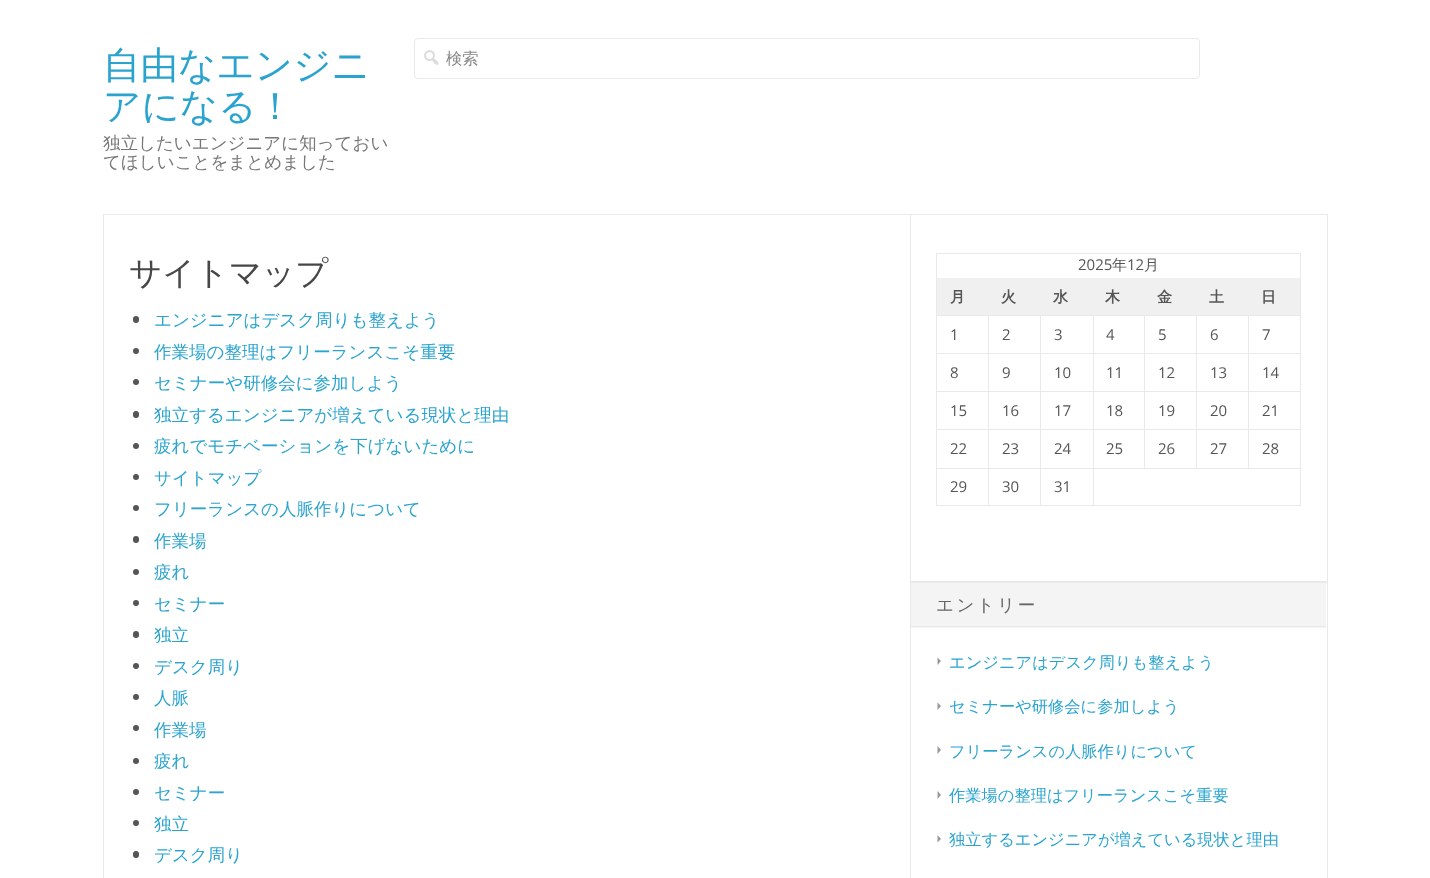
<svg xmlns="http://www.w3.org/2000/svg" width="1430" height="878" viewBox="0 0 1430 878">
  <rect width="100%" height="100%" fill="#ffffff"/>
  <text x="103" y="78" font-family="WenQuanYi Zen Hei" font-size="37.5" font-weight="500" fill="#2aa4cf">自由なエンジニ</text>
  <text x="103" y="119" font-family="WenQuanYi Zen Hei" font-size="37.5" font-weight="500" fill="#2aa4cf">アになる！</text>
  <text x="103" y="149" font-family="WenQuanYi Zen Hei" font-size="17.5" font-weight="500" fill="#777777">独立したいエンジニアに知っておい</text>
  <text x="103" y="168" font-family="WenQuanYi Zen Hei" font-size="17.5" font-weight="500" fill="#777777">てほしいことをまとめました</text>
  <rect x="414.5" y="38.5" width="785" height="40" rx="3.5" fill="none" stroke="#e9e9e9"/>
  <image x="424" y="50" width="15" height="15" href="img1.png"/>
  <text x="446" y="64" font-family="WenQuanYi Zen Hei" font-size="16.25" font-weight="500" fill="#888888">検索</text>
  <rect x="103.5" y="214.5" width="807" height="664" fill="none" stroke="#e9e9e9"/>
  <text x="129" y="284" font-family="WenQuanYi Zen Hei" font-size="32.5" font-weight="500" fill="#474747">サイトマップ</text>
  <rect x="133" y="316" width="6" height="7" rx="3" fill="#555555"/>
  <text x="154" y="326" font-family="WenQuanYi Zen Hei" font-size="17.5" font-weight="500" fill="#2aa4cf">エンジニアはデスク周りも整えよう</text>
  <circle cx="136" cy="351" r="3" fill="#555555"/>
  <text x="154" y="358" font-family="WenQuanYi Zen Hei" font-size="17.5" font-weight="500" fill="#2aa4cf">作業場の整理はフリーランスこそ重要</text>
  <circle cx="136" cy="382" r="3" fill="#555555"/>
  <text x="154" y="389" font-family="WenQuanYi Zen Hei" font-size="17.5" font-weight="500" fill="#2aa4cf">セミナーや研修会に参加しよう</text>
  <rect x="133" y="411" width="6" height="7" rx="3" fill="#555555"/>
  <text x="154" y="421" font-family="WenQuanYi Zen Hei" font-size="17.5" font-weight="500" fill="#2aa4cf">独立するエンジニアが増えている現状と理由</text>
  <circle cx="136" cy="446" r="3" fill="#555555"/>
  <text x="154" y="452" font-family="WenQuanYi Zen Hei" font-size="17.5" font-weight="500" fill="#2aa4cf">疲れでモチベーションを下げないために</text>
  <circle cx="136" cy="477" r="3" fill="#555555"/>
  <text x="154" y="484" font-family="WenQuanYi Zen Hei" font-size="17.5" font-weight="500" fill="#2aa4cf">サイトマップ</text>
  <circle cx="136" cy="508" r="3" fill="#555555"/>
  <text x="154" y="515" font-family="WenQuanYi Zen Hei" font-size="17.5" font-weight="500" fill="#2aa4cf">フリーランスの人脈作りについて</text>
  <rect x="133" y="536" width="6" height="7" rx="3" fill="#555555"/>
  <text x="154" y="547" font-family="WenQuanYi Zen Hei" font-size="17.5" font-weight="500" fill="#2aa4cf">作業場</text>
  <circle cx="136" cy="572" r="3" fill="#555555"/>
  <text x="154" y="578" font-family="WenQuanYi Zen Hei" font-size="17.5" font-weight="500" fill="#2aa4cf">疲れ</text>
  <circle cx="136" cy="603" r="3" fill="#555555"/>
  <text x="154" y="610" font-family="WenQuanYi Zen Hei" font-size="17.5" font-weight="500" fill="#2aa4cf">セミナー</text>
  <rect x="133" y="631" width="6" height="7" rx="3" fill="#555555"/>
  <text x="154" y="641" font-family="WenQuanYi Zen Hei" font-size="17.5" font-weight="500" fill="#2aa4cf">独立</text>
  <circle cx="136" cy="666" r="3" fill="#555555"/>
  <text x="154" y="673" font-family="WenQuanYi Zen Hei" font-size="17.5" font-weight="500" fill="#2aa4cf">デスク周り</text>
  <circle cx="136" cy="697" r="3" fill="#555555"/>
  <text x="154" y="704" font-family="WenQuanYi Zen Hei" font-size="17.5" font-weight="500" fill="#2aa4cf">人脈</text>
  <circle cx="136" cy="728" r="3" fill="#555555"/>
  <text x="154" y="736" font-family="WenQuanYi Zen Hei" font-size="17.5" font-weight="500" fill="#2aa4cf">作業場</text>
  <circle cx="136" cy="761" r="3" fill="#555555"/>
  <text x="154" y="767" font-family="WenQuanYi Zen Hei" font-size="17.5" font-weight="500" fill="#2aa4cf">疲れ</text>
  <circle cx="136" cy="792" r="3" fill="#555555"/>
  <text x="154" y="799" font-family="WenQuanYi Zen Hei" font-size="17.5" font-weight="500" fill="#2aa4cf">セミナー</text>
  <circle cx="136" cy="823" r="3" fill="#555555"/>
  <text x="154" y="830" font-family="WenQuanYi Zen Hei" font-size="17.5" font-weight="500" fill="#2aa4cf">独立</text>
  <rect x="133" y="851" width="6" height="7" rx="3" fill="#555555"/>
  <text x="154" y="861" font-family="WenQuanYi Zen Hei" font-size="17.5" font-weight="500" fill="#2aa4cf">デスク周り</text>
  <rect x="910.5" y="214.5" width="417" height="368" fill="none" stroke="#e9e9e9"/>
  <rect x="936" y="253" width="365" height="1" fill="#e9e9e9"/>
  <rect x="1300" y="253" width="1" height="253" fill="#e9e9e9"/>
  <rect x="936" y="505" width="365" height="1" fill="#e9e9e9"/>
  <rect x="936" y="253" width="1" height="253" fill="#e9e9e9"/>
  <text x="1078" y="270" font-family="Open Sans" font-size="15" fill="#555555">2025</text>
  <text x="1112" y="270" font-family="WenQuanYi Zen Hei" font-size="15" font-weight="500" fill="#555555">年</text>
  <text x="1127" y="270" font-family="Open Sans" font-size="15" fill="#555555">12</text>
  <text x="1144" y="270" font-family="WenQuanYi Zen Hei" font-size="15" font-weight="500" fill="#555555">月</text>
  <rect x="937" y="278" width="363" height="37" fill="#f0f0f0"/>
  <text x="950" y="302" font-family="WenQuanYi Zen Hei" font-size="15" font-weight="bold" fill="#555555">月</text>
  <text x="1001" y="302" font-family="WenQuanYi Zen Hei" font-size="15" font-weight="bold" fill="#555555">火</text>
  <text x="1053" y="302" font-family="WenQuanYi Zen Hei" font-size="15" font-weight="bold" fill="#555555">水</text>
  <text x="1105" y="302" font-family="WenQuanYi Zen Hei" font-size="15" font-weight="bold" fill="#555555">木</text>
  <text x="1157" y="302" font-family="WenQuanYi Zen Hei" font-size="15" font-weight="bold" fill="#555555">金</text>
  <text x="1209" y="302" font-family="WenQuanYi Zen Hei" font-size="15" font-weight="bold" fill="#555555">土</text>
  <text x="1261" y="302" font-family="WenQuanYi Zen Hei" font-size="15" font-weight="bold" fill="#555555">日</text>
  <rect x="1248" y="315" width="53" height="1" fill="#e9e9e9"/>
  <rect x="1248" y="353" width="53" height="1" fill="#e9e9e9"/>
  <rect x="1248" y="391" width="53" height="1" fill="#e9e9e9"/>
  <rect x="1248" y="429" width="53" height="1" fill="#e9e9e9"/>
  <rect x="1093" y="468" width="208" height="1" fill="#e9e9e9"/>
  <rect x="1248" y="429" width="1" height="40" fill="#e9e9e9"/>
  <rect x="1196" y="429" width="53" height="1" fill="#e9e9e9"/>
  <rect x="1248" y="391" width="1" height="39" fill="#e9e9e9"/>
  <rect x="1196" y="391" width="53" height="1" fill="#e9e9e9"/>
  <rect x="1248" y="353" width="1" height="40" fill="#e9e9e9"/>
  <rect x="1196" y="353" width="53" height="1" fill="#e9e9e9"/>
  <rect x="1248" y="315" width="1" height="39" fill="#e9e9e9"/>
  <rect x="1196" y="315" width="53" height="1" fill="#e9e9e9"/>
  <rect x="1196" y="429" width="1" height="40" fill="#e9e9e9"/>
  <rect x="1144" y="429" width="54" height="1" fill="#e9e9e9"/>
  <rect x="1196" y="391" width="1" height="39" fill="#e9e9e9"/>
  <rect x="1144" y="391" width="54" height="1" fill="#e9e9e9"/>
  <rect x="1196" y="353" width="1" height="40" fill="#e9e9e9"/>
  <rect x="1144" y="353" width="54" height="1" fill="#e9e9e9"/>
  <rect x="1196" y="315" width="1" height="39" fill="#e9e9e9"/>
  <rect x="1144" y="315" width="54" height="1" fill="#e9e9e9"/>
  <rect x="1144" y="429" width="1" height="40" fill="#e9e9e9"/>
  <rect x="1093" y="429" width="52" height="1" fill="#e9e9e9"/>
  <rect x="1144" y="391" width="1" height="39" fill="#e9e9e9"/>
  <rect x="1093" y="391" width="52" height="1" fill="#e9e9e9"/>
  <rect x="1144" y="353" width="1" height="40" fill="#e9e9e9"/>
  <rect x="1093" y="353" width="52" height="1" fill="#e9e9e9"/>
  <rect x="1144" y="315" width="1" height="39" fill="#e9e9e9"/>
  <rect x="1093" y="315" width="52" height="1" fill="#e9e9e9"/>
  <rect x="1093" y="468" width="1" height="38" fill="#e9e9e9"/>
  <rect x="1040" y="468" width="54" height="1" fill="#e9e9e9"/>
  <rect x="1093" y="429" width="1" height="40" fill="#e9e9e9"/>
  <rect x="1040" y="429" width="54" height="1" fill="#e9e9e9"/>
  <rect x="1093" y="391" width="1" height="39" fill="#e9e9e9"/>
  <rect x="1040" y="391" width="54" height="1" fill="#e9e9e9"/>
  <rect x="1093" y="353" width="1" height="40" fill="#e9e9e9"/>
  <rect x="1040" y="353" width="54" height="1" fill="#e9e9e9"/>
  <rect x="1093" y="315" width="1" height="39" fill="#e9e9e9"/>
  <rect x="1040" y="315" width="54" height="1" fill="#e9e9e9"/>
  <rect x="1040" y="468" width="1" height="38" fill="#e9e9e9"/>
  <rect x="988" y="468" width="53" height="1" fill="#e9e9e9"/>
  <rect x="1040" y="429" width="1" height="40" fill="#e9e9e9"/>
  <rect x="988" y="429" width="53" height="1" fill="#e9e9e9"/>
  <rect x="1040" y="391" width="1" height="39" fill="#e9e9e9"/>
  <rect x="988" y="391" width="53" height="1" fill="#e9e9e9"/>
  <rect x="1040" y="353" width="1" height="40" fill="#e9e9e9"/>
  <rect x="988" y="353" width="53" height="1" fill="#e9e9e9"/>
  <rect x="1040" y="315" width="1" height="39" fill="#e9e9e9"/>
  <rect x="988" y="315" width="53" height="1" fill="#e9e9e9"/>
  <rect x="988" y="468" width="1" height="38" fill="#e9e9e9"/>
  <rect x="936" y="468" width="53" height="1" fill="#e9e9e9"/>
  <rect x="988" y="429" width="1" height="40" fill="#e9e9e9"/>
  <rect x="936" y="429" width="53" height="1" fill="#e9e9e9"/>
  <rect x="988" y="391" width="1" height="39" fill="#e9e9e9"/>
  <rect x="936" y="391" width="53" height="1" fill="#e9e9e9"/>
  <rect x="988" y="353" width="1" height="40" fill="#e9e9e9"/>
  <rect x="936" y="353" width="53" height="1" fill="#e9e9e9"/>
  <rect x="988" y="315" width="1" height="39" fill="#e9e9e9"/>
  <rect x="936" y="315" width="53" height="1" fill="#e9e9e9"/>
  <text x="950" y="340" font-family="Open Sans" font-size="15" fill="#555555">1</text>
  <text x="1002" y="340" font-family="Open Sans" font-size="15" fill="#555555">2</text>
  <text x="1054" y="340" font-family="Open Sans" font-size="15" fill="#555555">3</text>
  <text x="1106" y="340" font-family="Open Sans" font-size="15" fill="#555555">4</text>
  <text x="1158" y="340" font-family="Open Sans" font-size="15" fill="#555555">5</text>
  <text x="1210" y="340" font-family="Open Sans" font-size="15" fill="#555555">6</text>
  <text x="1262" y="340" font-family="Open Sans" font-size="15" fill="#555555">7</text>
  <text x="950" y="378" font-family="Open Sans" font-size="15" fill="#555555">8</text>
  <text x="1002" y="378" font-family="Open Sans" font-size="15" fill="#555555">9</text>
  <text x="1054" y="378" font-family="Open Sans" font-size="15" fill="#555555">10</text>
  <text x="1106" y="378" font-family="Open Sans" font-size="15" fill="#555555">11</text>
  <text x="1158" y="378" font-family="Open Sans" font-size="15" fill="#555555">12</text>
  <text x="1210" y="378" font-family="Open Sans" font-size="15" fill="#555555">13</text>
  <text x="1262" y="378" font-family="Open Sans" font-size="15" fill="#555555">14</text>
  <text x="950" y="416" font-family="Open Sans" font-size="15" fill="#555555">15</text>
  <text x="1002" y="416" font-family="Open Sans" font-size="15" fill="#555555">16</text>
  <text x="1054" y="416" font-family="Open Sans" font-size="15" fill="#555555">17</text>
  <text x="1106" y="416" font-family="Open Sans" font-size="15" fill="#555555">18</text>
  <text x="1158" y="416" font-family="Open Sans" font-size="15" fill="#555555">19</text>
  <text x="1210" y="416" font-family="Open Sans" font-size="15" fill="#555555">20</text>
  <text x="1262" y="416" font-family="Open Sans" font-size="15" fill="#555555">21</text>
  <text x="950" y="454" font-family="Open Sans" font-size="15" fill="#555555">22</text>
  <text x="1002" y="454" font-family="Open Sans" font-size="15" fill="#555555">23</text>
  <text x="1054" y="454" font-family="Open Sans" font-size="15" fill="#555555">24</text>
  <text x="1106" y="454" font-family="Open Sans" font-size="15" fill="#555555">25</text>
  <text x="1158" y="454" font-family="Open Sans" font-size="15" fill="#555555">26</text>
  <text x="1210" y="454" font-family="Open Sans" font-size="15" fill="#555555">27</text>
  <text x="1262" y="454" font-family="Open Sans" font-size="15" fill="#555555">28</text>
  <text x="950" y="492" font-family="Open Sans" font-size="15" fill="#555555">29</text>
  <text x="1002" y="492" font-family="Open Sans" font-size="15" fill="#555555">30</text>
  <text x="1054" y="492" font-family="Open Sans" font-size="15" fill="#555555">31</text>
  <rect x="910.5" y="581.5" width="417" height="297" fill="none" stroke="#e9e9e9"/>
  <rect x="911" y="583" width="415" height="45" fill="#f4f4f4"/>
  <rect x="911" y="626" width="415" height="1" fill="#e9e9e9"/>
  <text x="936" y="611" font-family="WenQuanYi Zen Hei" font-size="17.5" font-weight="500" letter-spacing="2.5" fill="#666666">エントリー</text>
  <path d="M937.5 665V657.5L941 661Z" fill="#999999"/>
  <text x="949" y="668" font-family="WenQuanYi Zen Hei" font-size="16.25" font-weight="500" fill="#2aa4cf">エンジニアはデスク周りも整えよう</text>
  <path d="M937.5 710V702.5L941 706Z" fill="#999999"/>
  <text x="949" y="712" font-family="WenQuanYi Zen Hei" font-size="16.25" font-weight="500" fill="#2aa4cf">セミナーや研修会に参加しよう</text>
  <path d="M937.5 754V746L941 750Z" fill="#999999"/>
  <text x="949" y="757" font-family="WenQuanYi Zen Hei" font-size="16.25" font-weight="500" fill="#2aa4cf">フリーランスの人脈作りについて</text>
  <path d="M937.5 799V791L941 795Z" fill="#999999"/>
  <text x="949" y="801" font-family="WenQuanYi Zen Hei" font-size="16.25" font-weight="500" fill="#2aa4cf">作業場の整理はフリーランスこそ重要</text>
  <path d="M937.5 842.5V835L941 839Z" fill="#999999"/>
  <text x="949" y="845" font-family="WenQuanYi Zen Hei" font-size="16.25" font-weight="500" fill="#2aa4cf">独立するエンジニアが増えている現状と理由</text>
</svg>
